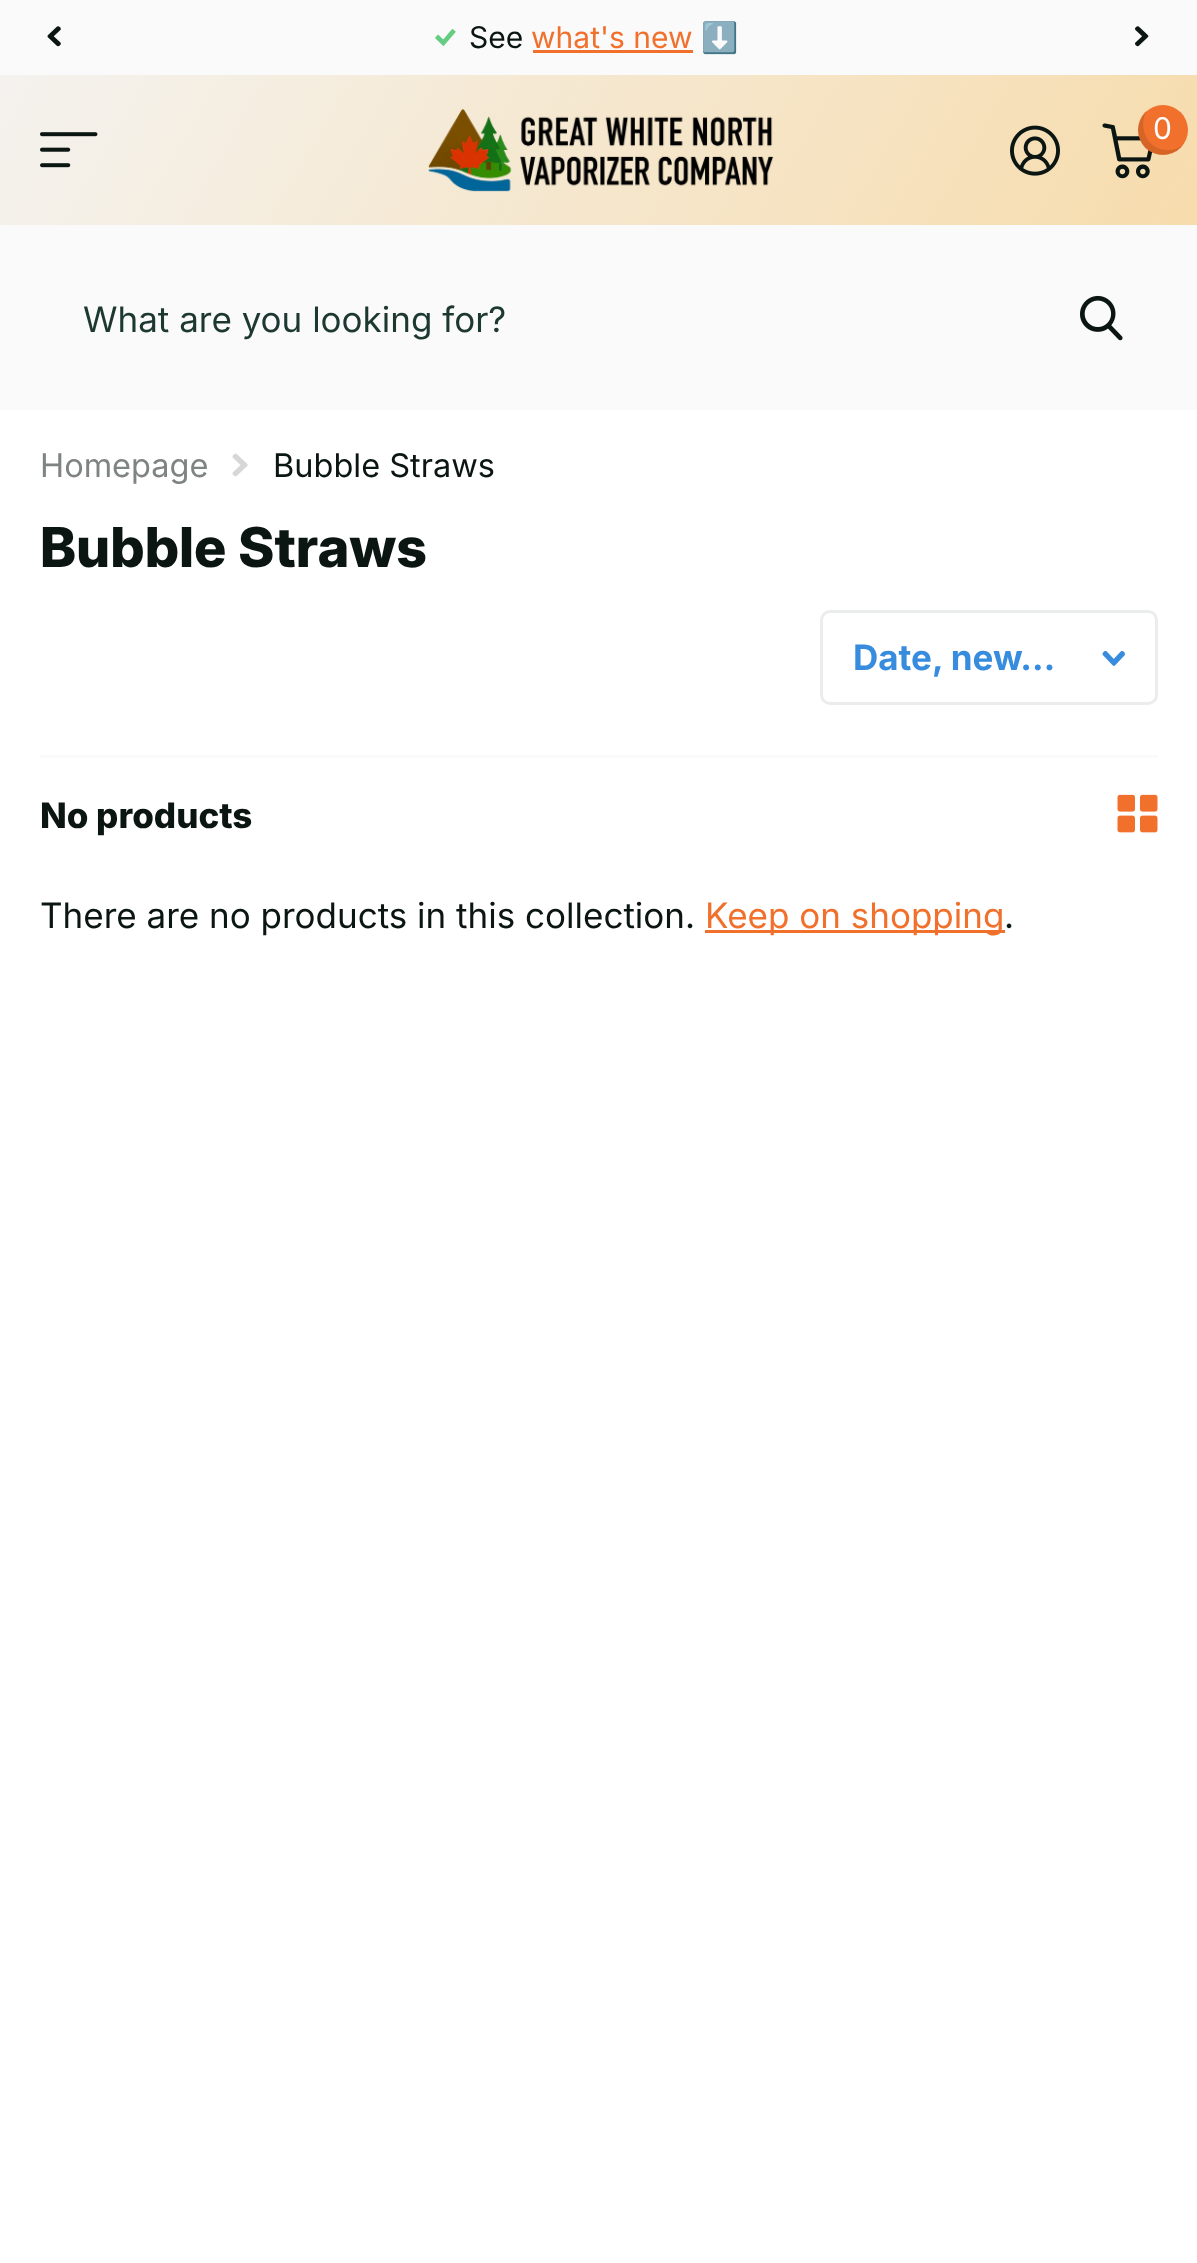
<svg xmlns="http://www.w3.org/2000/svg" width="1197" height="2263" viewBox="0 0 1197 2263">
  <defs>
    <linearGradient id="g1" gradientUnits="userSpaceOnUse" x1="16" y1="-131" x2="1182" y2="541"><stop offset="0" stop-color="#f4f4f4"/><stop offset="1" stop-color="#f7d9a4"/></linearGradient>
  </defs>
  <rect width="100%" height="100%" fill="#ffffff"/>
  <rect x="0" y="0" width="1197" height="75" fill="#fafafa"/>
  <image x="47" y="26" width="14" height="21" href="img1.png"/>
  <image x="435" y="29" width="21" height="17" href="img2.png"/>
  <text x="469" y="48" font-family="Inter" font-size="30" fill="#0b1613">See</text>
  <text x="531" y="48" font-family="Inter" font-size="30" fill="#f0702c">what's new</text>
  <rect x="533" y="50" width="160" height="3" fill="#f0702c"/>
  <text x="701" y="48" font-family="Noto Color Emoji" font-size="30" fill="#0b1613">⬇️</text>
  <image x="1135" y="26" width="14" height="21" href="img3.png"/>
  <rect x="0" y="75" width="1197" height="150" fill="url(#g1)"/>
  <image x="428" y="108" width="346" height="84" href="img4.png"/>
  <image x="1010" y="125" width="50" height="51" href="img5.png"/>
  <image x="1102" y="123" width="51" height="56" href="img6.png"/>
  <circle cx="1163" cy="130" r="25" fill="#f0702c"/>
  <path d="M1183 145C1179 148 1174 150 1168 150C1145 150 1138 125 1147 110C1136 120 1135 137 1145 148C1156 158 1174 157 1183 145Z" fill="#000000" fill-opacity="0.1"/>
  <text x="1153" y="139" font-family="Inter" font-size="30" fill="#ffffff">0</text>
  <image x="40" y="132" width="58" height="36" href="img7.png"/>
  <rect x="0" y="225" width="1197" height="185" fill="#fafafa"/>
  <text x="83" y="332" font-family="Inter" font-size="35" fill="#1c3830">What are you looking for?</text>
  <image x="1080" y="295" width="43" height="46" href="img8.png"/>
  <text x="40" y="477" font-family="Inter" font-size="32.5" fill="#7e8482">Homepage</text>
  <image x="232" y="453" width="16" height="24" href="img9.png"/>
  <text x="273" y="477" font-family="Inter" font-size="32.5" fill="#0b1613">Bubble Straws</text>
  <text x="40" y="567" font-family="Inter" font-size="55" font-weight="800" fill="#0b1613">Bubble Straws</text>
  <rect x="821.5" y="611.5" width="335" height="92" rx="8.5" fill="none" stroke="#ebecec" stroke-width="3"/>
  <text x="853" y="670" font-family="Inter" font-size="35" font-weight="bold" fill="#378cde">Date, new…</text>
  <image x="1102" y="651" width="23" height="15" href="img10.png"/>
  <rect x="40" y="755" width="1118" height="3" fill="#fafafa"/>
  <text x="40" y="828" font-family="'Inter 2'" font-size="35" font-weight="800" fill="#0b1613">No products</text>
  <image x="1117" y="794" width="41" height="39" href="img11.png"/>
  <text x="40" y="928" font-family="Inter" font-size="35" fill="#0b1613">There are no products in this collection.</text>
  <rect x="705" y="930" width="300" height="3" fill="#f0702c"/>
  <text x="705" y="928" font-family="Inter" font-size="35" fill="#f0702c">Keep on shopping</text>
  <text x="1004" y="928" font-family="Inter" font-size="35" fill="#0b1613">.</text>
</svg>
